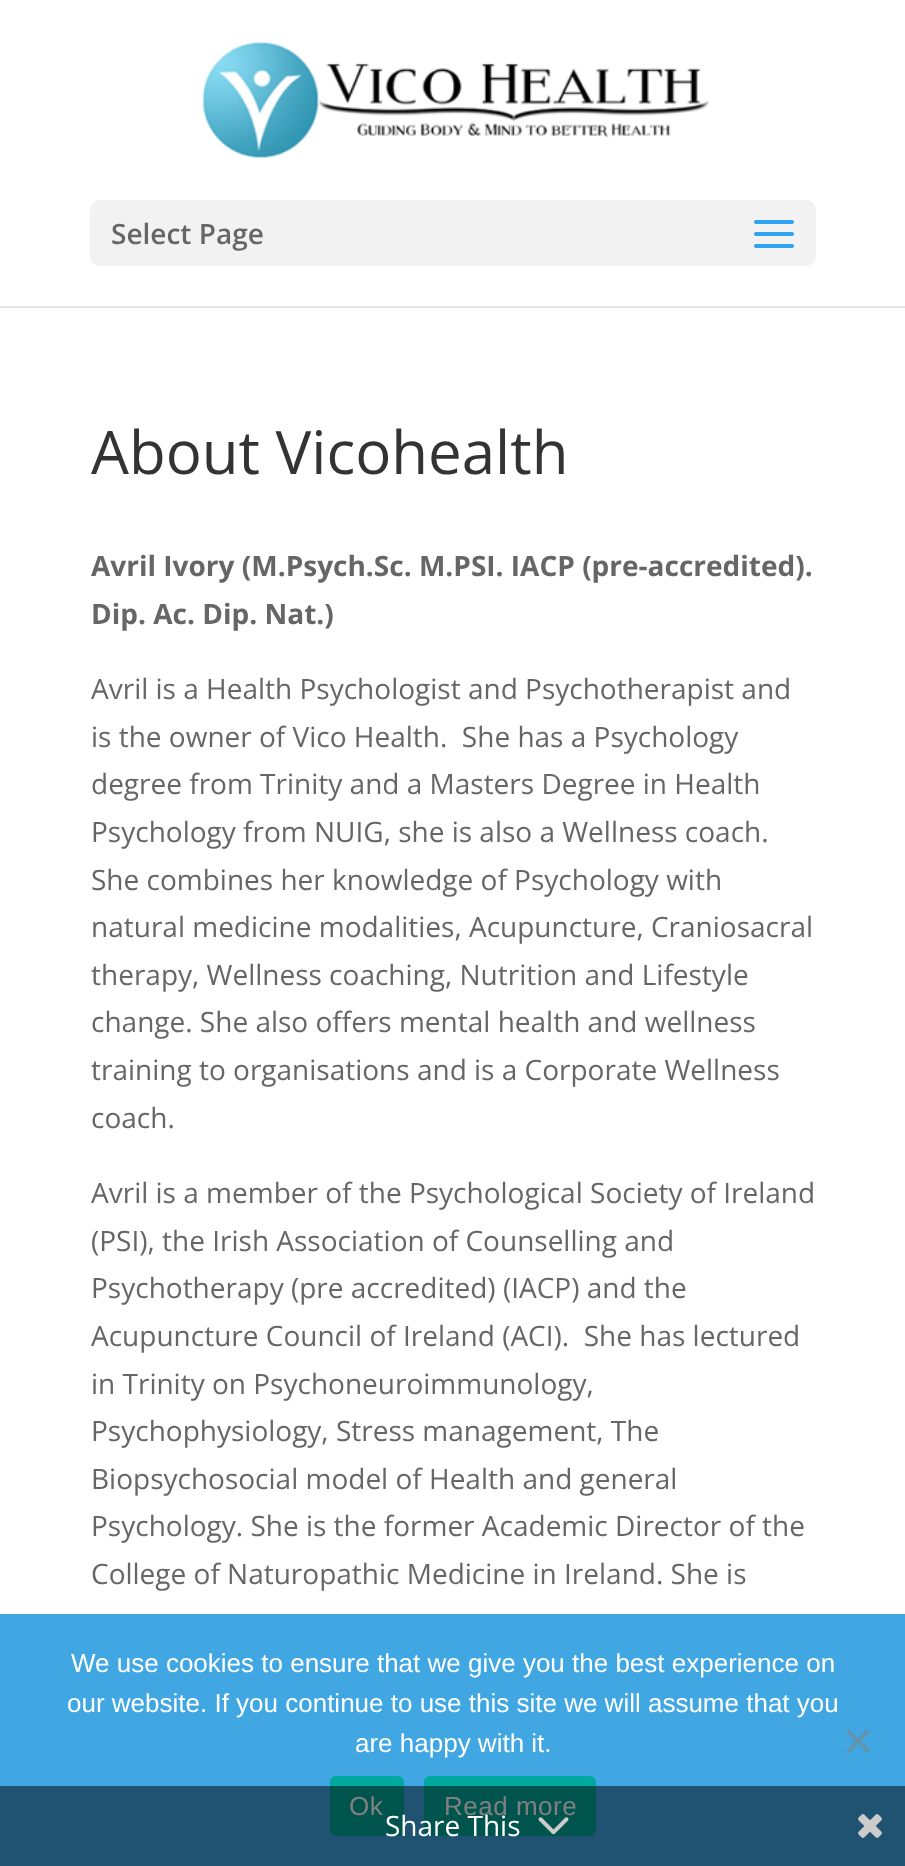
<svg xmlns="http://www.w3.org/2000/svg" width="905" height="1866" viewBox="0 0 905 1866">
  <rect width="100%" height="100%" fill="#ffffff"/>
  <rect x="0" y="306" width="905" height="2" fill="#e6e6e6"/>
  <image x="202" y="41" width="508" height="118" href="img1.png"/>
  <rect x="90" y="200" width="726" height="66" rx="10" fill="#f2f2f2"/>
  <text x="111" y="244" font-family="Open Sans" font-size="28" font-weight="600" fill="#666666">Select Page</text>
  <image x="754" y="220" width="40" height="28" href="img2.png"/>
  <text x="91" y="474" font-family="Open Sans" font-size="60" fill="#333333">About Vicohealth</text>
  <text x="91" y="576" font-family="Open Sans" font-size="28" font-weight="bold" fill="#666666">Avril Ivory (M.Psych.Sc. M.PSI. IACP (pre-accredited).</text>
  <text x="91" y="624" font-family="Open Sans" font-size="28" font-weight="bold" fill="#666666">Dip. Ac. Dip. Nat.)</text>
  <text x="91" y="699" font-family="Open Sans" font-size="28" fill="#666666">Avril is a Health Psychologist and Psychotherapist and</text>
  <text x="91" y="747" font-family="Open Sans" font-size="28" fill="#666666" xml:space="preserve">is the owner of Vico Health.  She has a Psychology</text>
  <text x="91" y="794" font-family="Open Sans" font-size="28" fill="#666666">degree from Trinity and a Masters Degree in Health</text>
  <text x="91" y="842" font-family="Open Sans" font-size="28" fill="#666666">Psychology from NUIG, she is also a Wellness coach.</text>
  <text x="91" y="890" font-family="Open Sans" font-size="28" fill="#666666">She combines her knowledge of Psychology with</text>
  <text x="91" y="937" font-family="Open Sans" font-size="28" fill="#666666">natural medicine modalities, Acupuncture, Craniosacral</text>
  <text x="91" y="985" font-family="Open Sans" font-size="28" fill="#666666">therapy, Wellness coaching, Nutrition and Lifestyle</text>
  <text x="91" y="1032" font-family="Open Sans" font-size="28" fill="#666666">change. She also offers mental health and wellness</text>
  <text x="91" y="1080" font-family="Open Sans" font-size="28" fill="#666666">training to organisations and is a Corporate Wellness</text>
  <text x="91" y="1128" font-family="Open Sans" font-size="28" fill="#666666">coach.</text>
  <text x="91" y="1203" font-family="Open Sans" font-size="28" fill="#666666">Avril is a member of the Psychological Society of Ireland</text>
  <text x="91" y="1251" font-family="Open Sans" font-size="28" fill="#666666">(PSI), the Irish Association of Counselling and</text>
  <text x="91" y="1298" font-family="Open Sans" font-size="28" fill="#666666">Psychotherapy (pre accredited) (IACP) and the</text>
  <text x="91" y="1346" font-family="Open Sans" font-size="28" fill="#666666" xml:space="preserve">Acupuncture Council of Ireland (ACI).  She has lectured</text>
  <text x="91" y="1394" font-family="Open Sans" font-size="28" fill="#666666">in Trinity on Psychoneuroimmunology,</text>
  <text x="91" y="1441" font-family="Open Sans" font-size="28" fill="#666666">Psychophysiology, Stress management, The</text>
  <text x="91" y="1489" font-family="Open Sans" font-size="28" fill="#666666">Biopsychosocial model of Health and general</text>
  <text x="91" y="1536" font-family="Open Sans" font-size="28" fill="#666666">Psychology. She is the former Academic Director of the</text>
  <text x="91" y="1584" font-family="Open Sans" font-size="28" fill="#666666">College of Naturopathic Medicine in Ireland. She is</text>
  <rect x="0" y="1614" width="905" height="252" fill="#41a7e2"/>
  <text x="71" y="1672" font-family="Liberation Sans" font-size="26" fill="#ffffff">We use cookies to ensure that we give you the best experience on</text>
  <text x="67" y="1712" font-family="Liberation Sans" font-size="26" fill="#ffffff">our website. If you continue to use this site we will assume that you</text>
  <text x="355" y="1752" font-family="Liberation Sans" font-size="26" fill="#ffffff">are happy with it.</text>
  <path d="M867 1729L870 1732L849 1753L846 1750Z" fill="#6194b1"/>
  <path d="M846 1732L849 1729L870 1750L867 1753Z" fill="#6194b1"/>
  <rect x="330" y="1776" width="74" height="60" rx="6" fill="#00a99d"/>
  <text x="349" y="1815" font-family="Liberation Sans" font-size="26" letter-spacing="0.5" fill="#ffffff">Ok</text>
  <rect x="424" y="1776" width="172" height="60" rx="6" fill="#00a99d"/>
  <text x="444" y="1815" font-family="Liberation Sans" font-size="26" letter-spacing="0.5" fill="#ffffff">Read more</text>
  <rect x="0" y="1786" width="905" height="80" fill="#000000" fill-opacity="0.5"/>
  <text x="385" y="1836" font-family="Open Sans" font-size="28" fill="#ffffff">Share This</text>
  <image x="538" y="1817" width="31" height="18" href="img3.png"/>
  <image x="858" y="1814" width="24" height="24" href="img4.png"/>
</svg>
